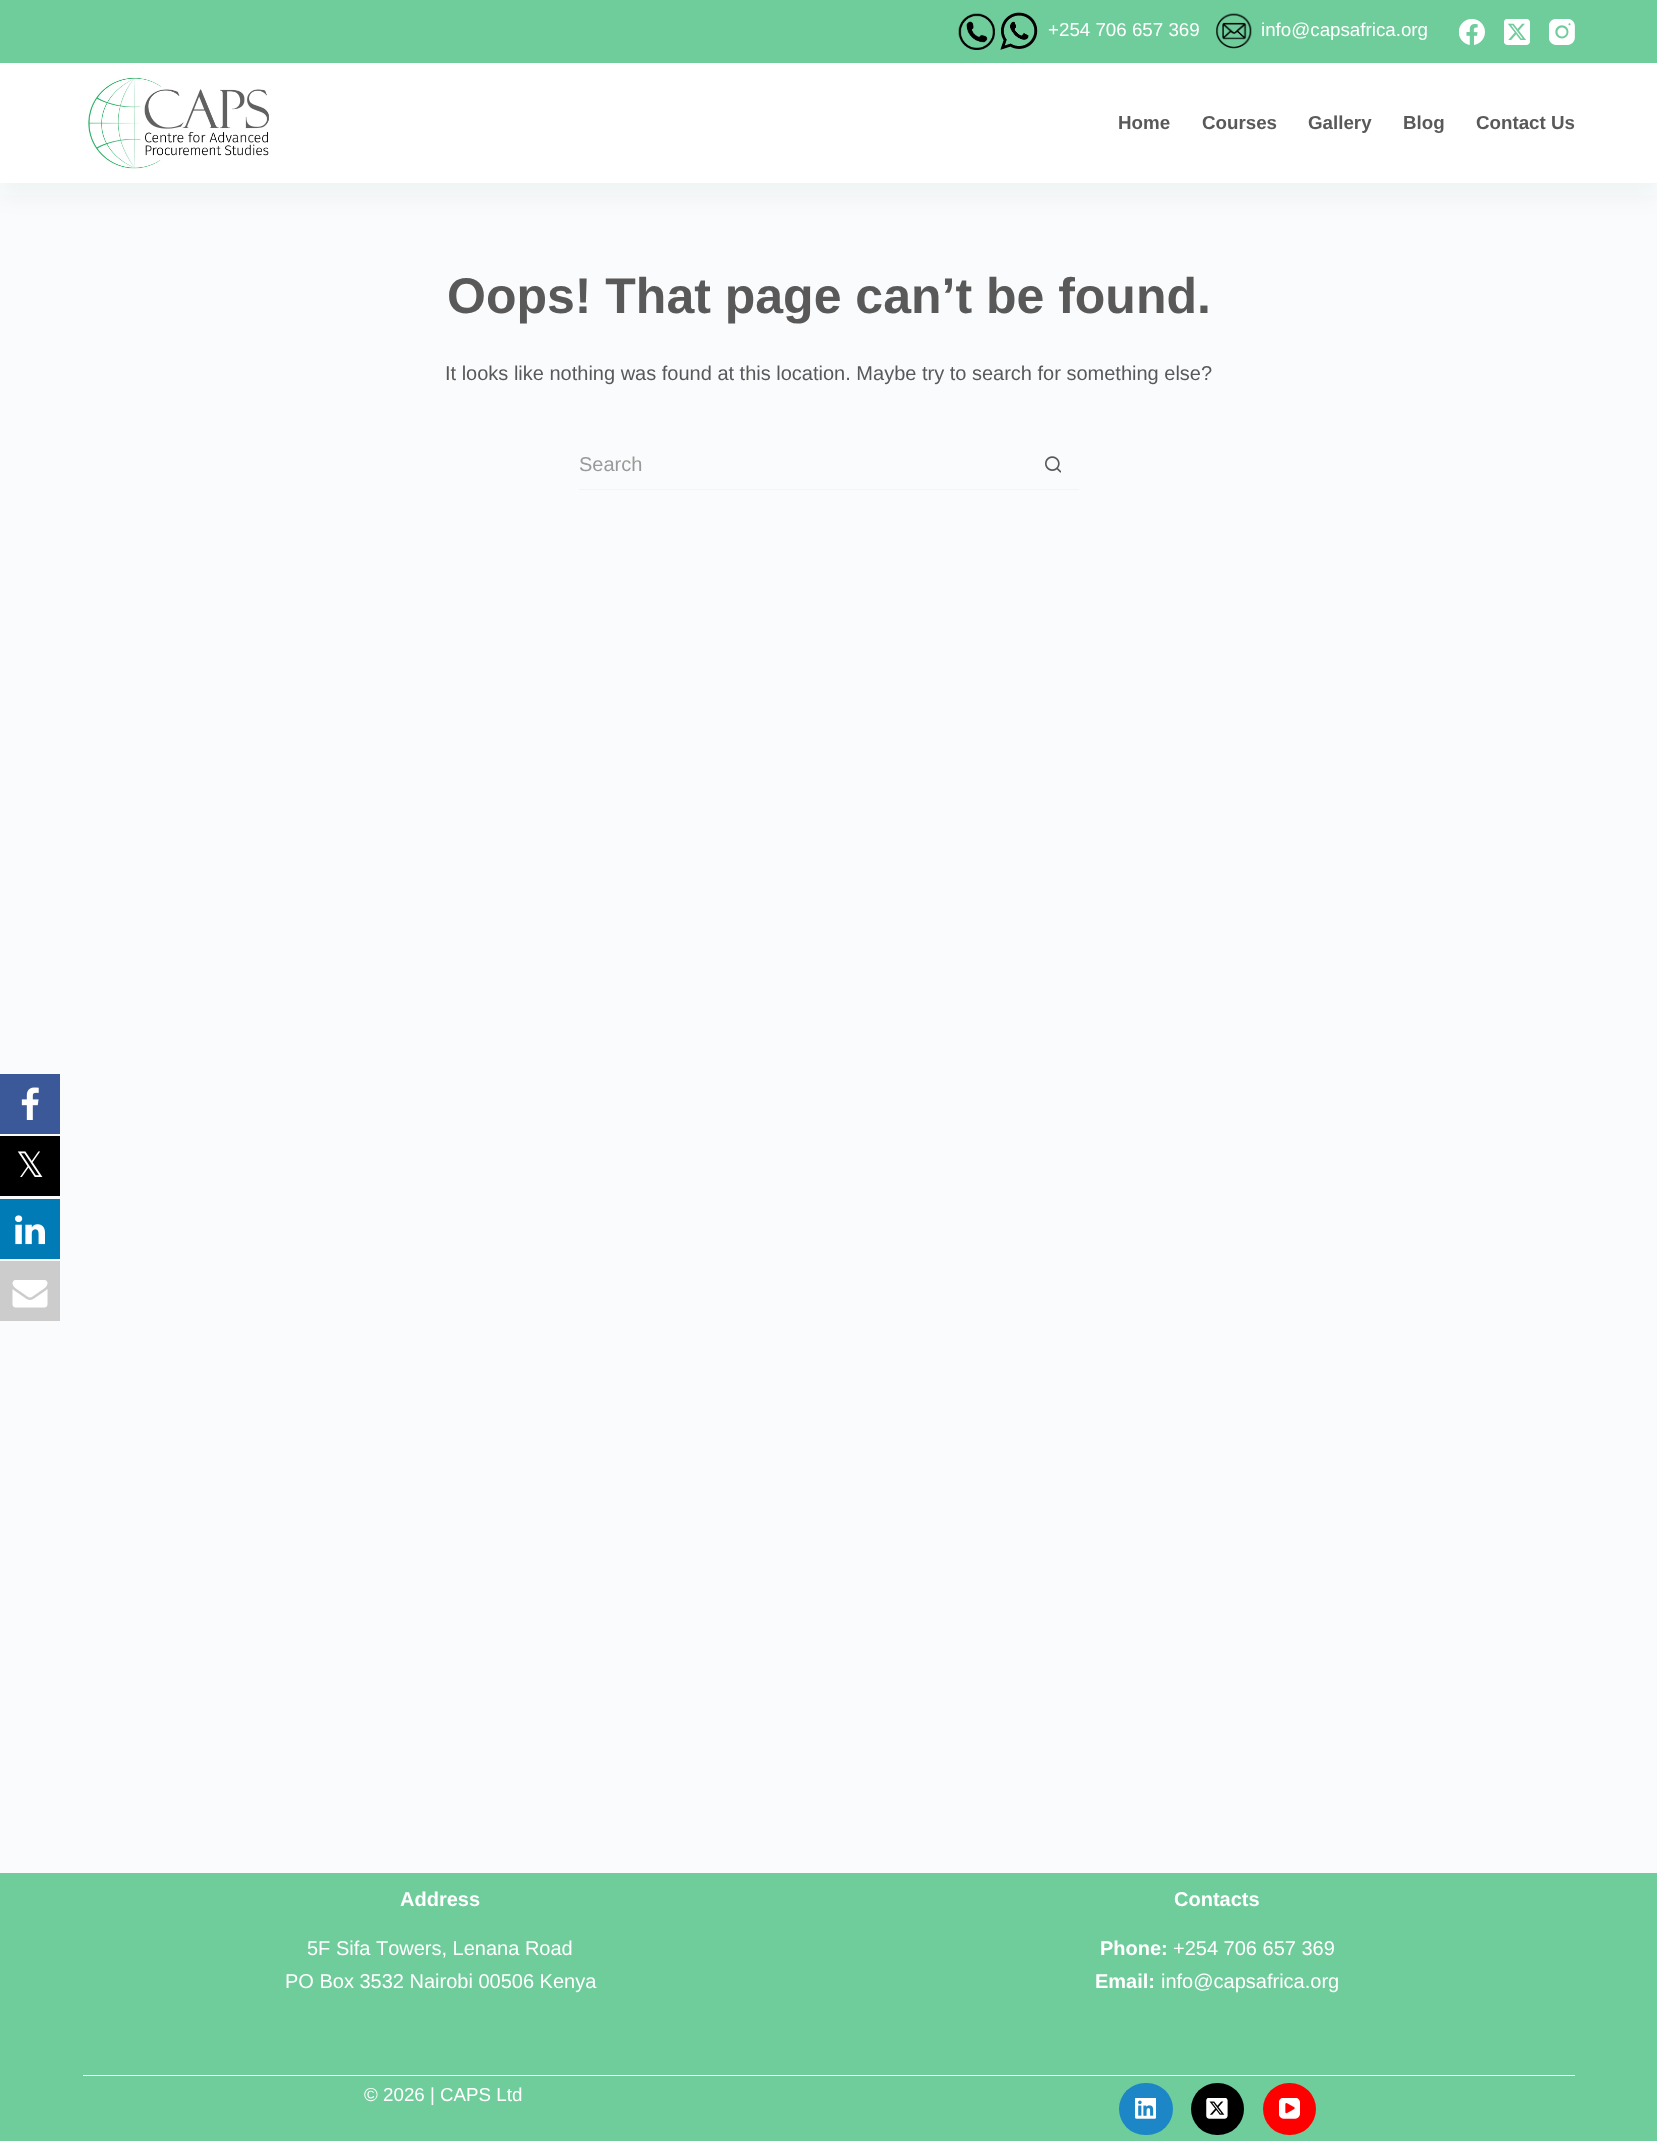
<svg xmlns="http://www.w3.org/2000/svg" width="1657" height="2141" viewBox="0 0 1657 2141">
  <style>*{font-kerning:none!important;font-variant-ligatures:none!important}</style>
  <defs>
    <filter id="blur1" x="-50%" y="-200%" width="200%" height="500%"><feGaussianBlur stdDeviation="12.5"/></filter>
  </defs>
  <rect width="100%" height="100%" fill="#fafbfc"/>
  <rect x="0" y="1074" width="60" height="60" fill="#3b5998"/>
  <image x="21" y="1087" width="18" height="33" href="img1.png"/>
  <rect x="0" y="1136" width="60" height="60" fill="#000000"/>
  <text x="16" y="1177" font-family="DejaVu Sans" font-size="35" fill="#ffffff">𝕏</text>
  <rect x="0" y="1199" width="60" height="60" fill="#007bb6"/>
  <image x="15" y="1215" width="30" height="30" href="img2.png"/>
  <rect x="0" y="1261" width="60" height="60" fill="#cccccc"/>
  <image x="12" y="1280" width="36" height="28" href="img3.png"/>
  <rect x="0" y="75" width="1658" height="120" fill="#2c3e50" fill-opacity="0.05" filter="url(#blur1)"/>
  <rect x="0" y="0" width="1657" height="63" fill="#6fcc9b"/>
  <image x="958" y="13" width="37" height="37" href="img4.png"/>
  <image x="1000" y="12" width="38" height="38" href="img5.png"/>
  <text x="1048" y="36" font-family="Liberation Sans" font-size="18.75" fill="#ffffff">+254 706 657 369</text>
  <image x="1216" y="13" width="36" height="36" href="img6.png"/>
  <text x="1261" y="36" font-family="Liberation Sans" font-size="18.75" fill="#ffffff">info@capsafrica.org</text>
  <image x="1459" y="19" width="26" height="26" href="img7.png"/>
  <image x="1504" y="19" width="26" height="26" href="img8.png"/>
  <image x="1549" y="19" width="26" height="26" href="img9.png"/>
  <rect x="0" y="63" width="1657" height="120" fill="#ffffff"/>
  <image x="88" y="77" width="181" height="92" href="img10.png"/>
  <text x="1118" y="129" font-family="Liberation Sans" font-size="18.75" font-weight="bold" fill="#595959">Home</text>
  <text x="1202" y="129" font-family="Liberation Sans" font-size="18.75" font-weight="bold" fill="#595959">Courses</text>
  <text x="1308" y="129" font-family="Liberation Sans" font-size="18.75" font-weight="bold" fill="#595959">Gallery</text>
  <text x="1403" y="129" font-family="Liberation Sans" font-size="18.75" font-weight="bold" fill="#595959">Blog</text>
  <text x="1476" y="129" font-family="Liberation Sans" font-size="18.75" font-weight="bold" fill="#595959">Contact Us</text>
  <text x="447" y="313" font-family="Liberation Sans" font-size="50" font-weight="bold" fill="#595959">Oops! That page can’t be found.</text>
  <text x="445" y="380" font-family="Liberation Sans" font-size="20" fill="#595959">It looks like nothing was found at this location. Maybe try to search for something else?</text>
  <rect x="579" y="489" width="500" height="1" fill="#f2f5f7"/>
  <text x="579" y="471" font-family="Liberation Sans" font-size="20" fill="#999a9a">Search</text>
  <image x="1045" y="456" width="16" height="17" href="img11.png"/>
  <rect x="0" y="1873" width="1657" height="268" fill="#6fcc9b"/>
  <text x="400" y="1906" font-family="Liberation Sans" font-size="20" font-weight="bold" fill="#ffffff">Address</text>
  <text x="307" y="1955" font-family="Liberation Sans" font-size="20" fill="#ffffff">5F Sifa Towers, Lenana Road</text>
  <text x="285" y="1988" font-family="Liberation Sans" font-size="20" fill="#ffffff">PO Box 3532 Nairobi 00506 Kenya</text>
  <text x="1174" y="1906" font-family="Liberation Sans" font-size="20" font-weight="bold" fill="#ffffff">Contacts</text>
  <text x="1100" y="1955" font-family="Liberation Sans" font-size="20" font-weight="bold" fill="#ffffff">Phone:</text>
  <text x="1173" y="1955" font-family="Liberation Sans" font-size="20" fill="#ffffff">+254 706 657 369</text>
  <text x="1095" y="1988" font-family="Liberation Sans" font-size="20" font-weight="bold" fill="#ffffff">Email:</text>
  <text x="1161" y="1988" font-family="Liberation Sans" font-size="20" fill="#ffffff">info@capsafrica.org</text>
  <rect x="83" y="2075" width="1492" height="1" fill="#ffffff"/>
  <text x="364" y="2101" font-family="Liberation Sans" font-size="18.75" fill="#ffffff">© 2026 | CAPS Ltd</text>
  <rect x="1119" y="2083" width="54" height="52" rx="26" fill="#1c86c6"/>
  <image x="1135" y="2098" width="21" height="21" href="img12.png"/>
  <rect x="1191" y="2083" width="53" height="52" rx="26" fill="#000000"/>
  <image x="1206" y="2098" width="22" height="21" href="img13.png"/>
  <rect x="1263" y="2083" width="53" height="52" rx="26" fill="#ff0000"/>
  <image x="1279" y="2098" width="21" height="21" href="img14.png"/>
</svg>
